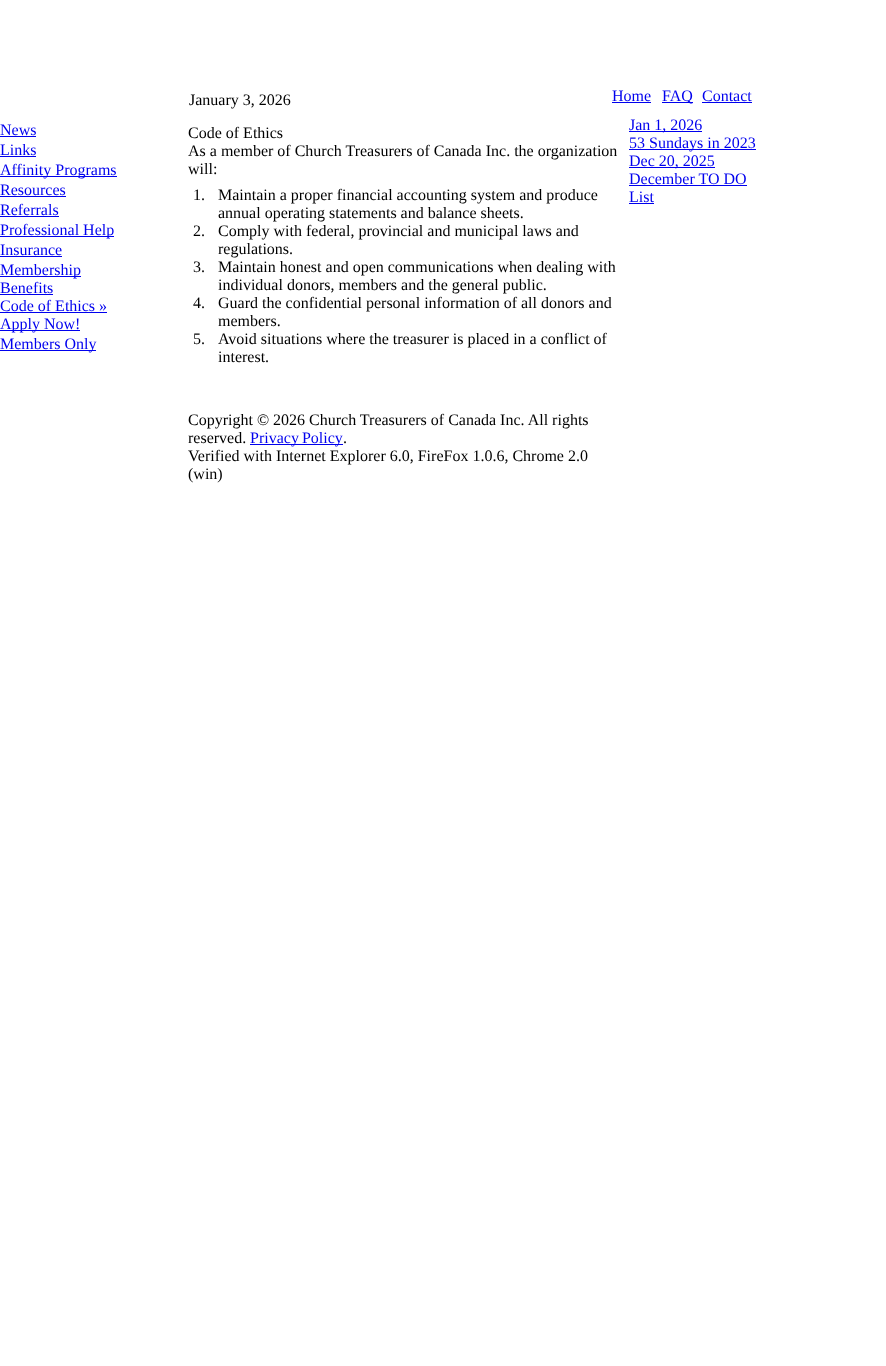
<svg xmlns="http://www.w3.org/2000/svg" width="886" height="1366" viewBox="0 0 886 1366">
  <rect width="100%" height="100%" fill="#ffffff"/>
  <text x="189" y="105" font-family="Liberation Serif" font-size="16" fill="#000000">January 3, 2026</text>
  <text x="612" y="101" font-family="Liberation Serif" font-size="16" fill="#0000ee">Home</text>
  <rect x="612" y="102" width="39" height="1" fill="#0000ee"/>
  <rect x="662" y="102" width="31" height="1" fill="#0000ee"/>
  <text x="662" y="101" font-family="Liberation Serif" font-size="16" fill="#0000ee">FAQ</text>
  <text x="702" y="101" font-family="Liberation Serif" font-size="16" fill="#0000ee">Contact</text>
  <rect x="702" y="102" width="50" height="1" fill="#0000ee"/>
  <text x="0" y="135" font-family="Liberation Serif" font-size="16" fill="#0000ee">News</text>
  <rect x="0" y="136" width="36" height="1" fill="#0000ee"/>
  <text x="0" y="155" font-family="Liberation Serif" font-size="16" fill="#0000ee">Links</text>
  <rect x="0" y="156" width="36" height="1" fill="#0000ee"/>
  <rect x="0" y="176" width="117" height="1" fill="#0000ee"/>
  <text x="0" y="175" font-family="Liberation Serif" font-size="16" fill="#0000ee">Affinity Programs</text>
  <text x="0" y="195" font-family="Liberation Serif" font-size="16" fill="#0000ee">Resources</text>
  <rect x="0" y="196" width="66" height="1" fill="#0000ee"/>
  <text x="0" y="215" font-family="Liberation Serif" font-size="16" fill="#0000ee">Referrals</text>
  <rect x="0" y="216" width="59" height="1" fill="#0000ee"/>
  <rect x="0" y="236" width="114" height="1" fill="#0000ee"/>
  <text x="0" y="235" font-family="Liberation Serif" font-size="16" fill="#0000ee">Professional Help</text>
  <text x="0" y="255" font-family="Liberation Serif" font-size="16" fill="#0000ee">Insurance</text>
  <rect x="0" y="256" width="62" height="1" fill="#0000ee"/>
  <rect x="0" y="276" width="81" height="1" fill="#0000ee"/>
  <text x="0" y="275" font-family="Liberation Serif" font-size="16" fill="#0000ee">Membership</text>
  <text x="0" y="293" font-family="Liberation Serif" font-size="16" fill="#0000ee">Benefits</text>
  <rect x="0" y="294" width="53" height="1" fill="#0000ee"/>
  <text x="0" y="311" font-family="Liberation Serif" font-size="16" fill="#0000ee">Code of Ethics »</text>
  <rect x="0" y="312" width="107" height="1" fill="#0000ee"/>
  <rect x="0" y="330" width="80" height="1" fill="#0000ee"/>
  <text x="0" y="329" font-family="Liberation Serif" font-size="16" fill="#0000ee">Apply Now!</text>
  <rect x="0" y="350" width="96" height="1" fill="#0000ee"/>
  <text x="0" y="349" font-family="Liberation Serif" font-size="16" fill="#0000ee">Members Only</text>
  <text x="188" y="138" font-family="Liberation Serif" font-size="16" fill="#000000">Code of Ethics</text>
  <text x="188" y="156" font-family="Liberation Serif" font-size="16" fill="#000000">As a member of Church Treasurers of Canada Inc. the organization</text>
  <text x="188" y="174" font-family="Liberation Serif" font-size="16" fill="#000000">will:</text>
  <text x="193" y="200" font-family="Liberation Serif" font-size="16" fill="#000000">1.</text>
  <text x="218" y="200" font-family="Liberation Serif" font-size="16" fill="#000000">Maintain a proper financial accounting system and produce</text>
  <text x="218" y="218" font-family="Liberation Serif" font-size="16" fill="#000000">annual operating statements and balance sheets.</text>
  <text x="193" y="236" font-family="Liberation Serif" font-size="16" fill="#000000">2.</text>
  <text x="218" y="236" font-family="Liberation Serif" font-size="16" fill="#000000">Comply with federal, provincial and municipal laws and</text>
  <text x="218" y="254" font-family="Liberation Serif" font-size="16" fill="#000000">regulations.</text>
  <text x="193" y="272" font-family="Liberation Serif" font-size="16" fill="#000000">3.</text>
  <text x="218" y="272" font-family="Liberation Serif" font-size="16" fill="#000000">Maintain honest and open communications when dealing with</text>
  <text x="218" y="290" font-family="Liberation Serif" font-size="16" fill="#000000">individual donors, members and the general public.</text>
  <text x="193" y="308" font-family="Liberation Serif" font-size="16" fill="#000000">4.</text>
  <text x="218" y="308" font-family="Liberation Serif" font-size="16" fill="#000000">Guard the confidential personal information of all donors and</text>
  <text x="218" y="326" font-family="Liberation Serif" font-size="16" fill="#000000">members.</text>
  <text x="193" y="344" font-family="Liberation Serif" font-size="16" fill="#000000">5.</text>
  <text x="218" y="344" font-family="Liberation Serif" font-size="16" fill="#000000">Avoid situations where the treasurer is placed in a conflict of</text>
  <text x="218" y="362" font-family="Liberation Serif" font-size="16" fill="#000000">interest.</text>
  <text x="188" y="425" font-family="Liberation Serif" font-size="16" fill="#000000">Copyright © 2026 Church Treasurers of Canada Inc. All rights</text>
  <text x="188" y="443" font-family="Liberation Serif" font-size="16" fill="#000000">reserved.</text>
  <rect x="250" y="444" width="93" height="1" fill="#0000ee"/>
  <text x="250" y="443" word-spacing="-1" font-family="Liberation Serif" font-size="16" fill="#0000ee">Privacy Policy</text>
  <text x="343" y="443" font-family="Liberation Serif" font-size="16" fill="#000000">.</text>
  <text x="188" y="461" font-family="Liberation Serif" font-size="16" fill="#000000">Verified with Internet Explorer 6.0, FireFox 1.0.6, Chrome 2.0</text>
  <text x="188" y="479" font-family="Liberation Serif" font-size="16" fill="#000000">(win)</text>
  <rect x="629" y="131" width="73" height="1" fill="#0000ee"/>
  <text x="629" y="130" font-family="Liberation Serif" font-size="16" fill="#0000ee">Jan 1, 2026</text>
  <rect x="629" y="149" width="127" height="1" fill="#0000ee"/>
  <text x="629" y="148" font-family="Liberation Serif" font-size="16" fill="#0000ee">53 Sundays in 2023</text>
  <rect x="629" y="167" width="86" height="1" fill="#0000ee"/>
  <text x="629" y="166" font-family="Liberation Serif" font-size="16" fill="#0000ee">Dec 20, 2025</text>
  <text x="629" y="184" font-family="Liberation Serif" font-size="16" fill="#0000ee">December TO DO</text>
  <rect x="629" y="185" width="118" height="1" fill="#0000ee"/>
  <text x="629" y="202" font-family="Liberation Serif" font-size="16" fill="#0000ee">List</text>
  <rect x="629" y="203" width="25" height="1" fill="#0000ee"/>
</svg>
